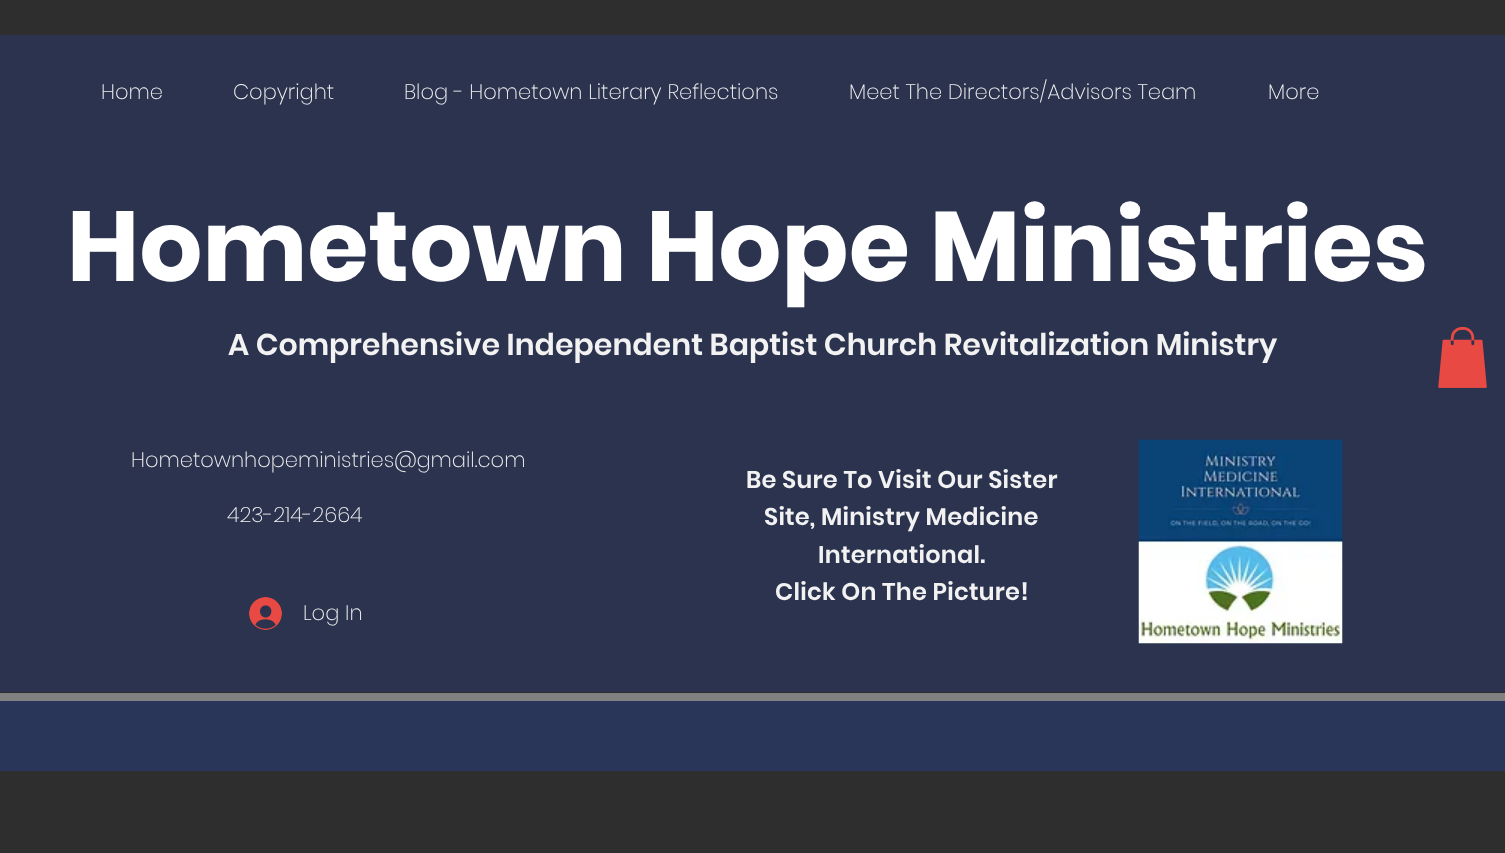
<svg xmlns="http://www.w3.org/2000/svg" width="1505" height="853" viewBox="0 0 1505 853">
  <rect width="100%" height="100%" fill="#293559"/>
  <rect x="0" y="0" width="1505" height="693" fill="#2f2e2e"/>
  <rect x="0" y="693" width="1505" height="8" fill="#828181"/>
  <rect x="0" y="35" width="1505" height="657" fill="#2b334e"/>
  <text x="101" y="99" font-family="Poppins" font-size="21" font-weight="200" fill="#f2f2f2">Home</text>
  <text x="233" y="99" font-family="Poppins" font-size="21" font-weight="200" fill="#f2f2f2">Copyright</text>
  <text x="404" y="99" font-family="Poppins" font-size="21" font-weight="200" fill="#f2f2f2">Blog - Hometown Literary Reflections</text>
  <text x="849" y="99" font-family="Poppins" font-size="21" font-weight="200" fill="#f2f2f2">Meet The Directors/Advisors Team</text>
  <text x="1268" y="99" font-family="Poppins" font-size="21" font-weight="200" fill="#f2f2f2">More</text>
  <text x="67" y="281" font-family="Poppins" font-size="99" font-weight="bold" fill="#ffffff">Hometown Hope Ministries</text>
  <text x="228" y="355" font-family="Poppins" font-size="30" font-weight="600" fill="#f2f2f2">A Comprehensive Independent Baptist Church Revitalization Ministry</text>
  <text x="131" y="467" font-family="Poppins" font-size="21" font-weight="200" fill="#f2f2f2">Hometownhopeministries@gmail.com</text>
  <image x="1138" y="439" width="205" height="205" href="img1.png"/>
  <text x="227" y="522" font-family="Poppins" font-size="21" font-weight="200" fill="#f2f2f2">423-214-2664</text>
  <text x="746" y="488" font-family="Poppins" font-size="24" font-weight="600" letter-spacing="0.25" fill="#f2f2f2">Be Sure To Visit Our Sister</text>
  <text x="764" y="525" font-family="Poppins" font-size="24" font-weight="600" letter-spacing="0.25" fill="#f2f2f2">Site, Ministry Medicine</text>
  <text x="818" y="563" font-family="Poppins" font-size="24" font-weight="600" letter-spacing="0.25" fill="#f2f2f2">International.</text>
  <text x="775" y="600" font-family="Poppins" font-size="24" font-weight="600" letter-spacing="0.25" fill="#f2f2f2">Click On The Picture!</text>
  <image x="249" y="597" width="33" height="33" href="img2.png"/>
  <text x="303" y="620" font-family="Poppins" font-size="21" font-weight="200" fill="#f2f2f2">Log In</text>
  <image x="1438" y="327" width="49" height="61" href="img3.png"/>
  <rect x="0" y="771" width="1505" height="82" fill="#2f2e2e"/>
</svg>
